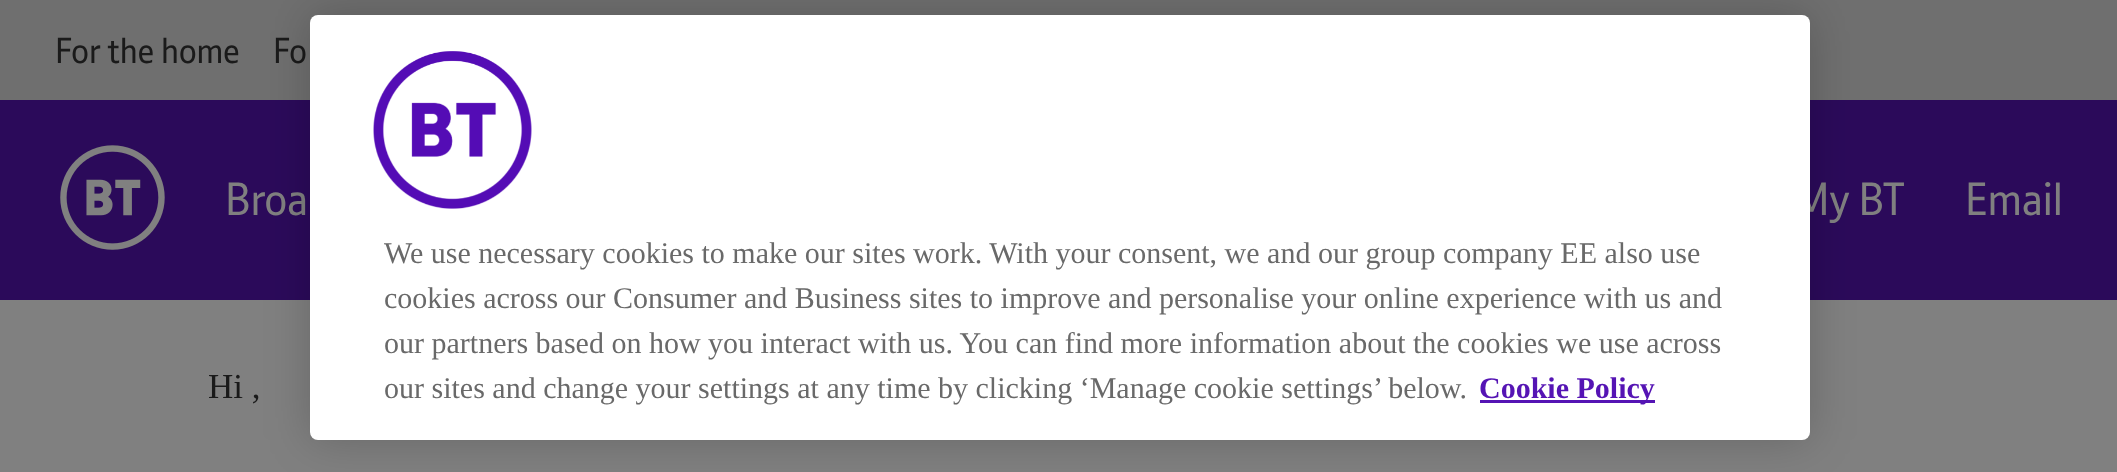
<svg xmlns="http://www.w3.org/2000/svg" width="2117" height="472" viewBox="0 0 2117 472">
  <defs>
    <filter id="blur1" x="-50%" y="-200%" width="200%" height="500%"><feGaussianBlur stdDeviation="22.5"/></filter>
  </defs>
  <rect width="100%" height="100%" fill="#808080"/>
  <rect x="0" y="0" width="2117" height="100" fill="#6f6f6f"/>
  <text x="55" y="63" font-family="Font" font-size="35" fill="#1a1a1a">For the home</text>
  <text x="273" y="63" font-family="Font" font-size="35" fill="#1a1a1a">Fo</text>
  <rect x="0" y="100" width="2117" height="200" fill="#2b0a5a"/>
  <image x="60" y="145" width="105" height="105" href="img1.png"/>
  <text x="225" y="215" font-family="Font" font-size="45" fill="#808080">Broa</text>
  <text x="1794" y="215" font-family="Font" font-size="45" fill="#808080">My BT</text>
  <text x="1965" y="215" font-family="Font" font-size="45" fill="#808080">Email</text>
  <text x="208" y="398" font-family="Liberation Serif" font-size="35" fill="#1a1a1a">Hi ,</text>
  <rect x="310" y="15" width="1500" height="425" rx="8" fill="#000000" fill-opacity="0.2" filter="url(#blur1)"/>
  <rect x="310" y="15" width="1500" height="425" rx="8" fill="#ffffff"/>
  <image x="373" y="51" width="159" height="158" href="img2.png"/>
  <text x="384" y="263" font-family="Liberation Serif" font-size="30" fill="#696969">We use necessary cookies to make our sites work. With your consent, we and our group company EE also use</text>
  <text x="384" y="308" font-family="Liberation Serif" font-size="30" fill="#696969">cookies across our Consumer and Business sites to improve and personalise your online experience with us and</text>
  <text x="384" y="353" font-family="Liberation Serif" font-size="30" fill="#696969">our partners based on how you interact with us. You can find more information about the cookies we use across</text>
  <text x="384" y="398" font-family="Liberation Serif" font-size="30" fill="#696969">our sites and change your settings at any time by clicking ‘Manage cookie settings’ below.</text>
  <rect x="1480" y="400" width="175" height="3" fill="#5514b4"/>
  <text x="1479" y="398" font-family="Liberation Serif" font-size="30" font-weight="bold" fill="#5514b4">Cookie Policy</text>
</svg>
